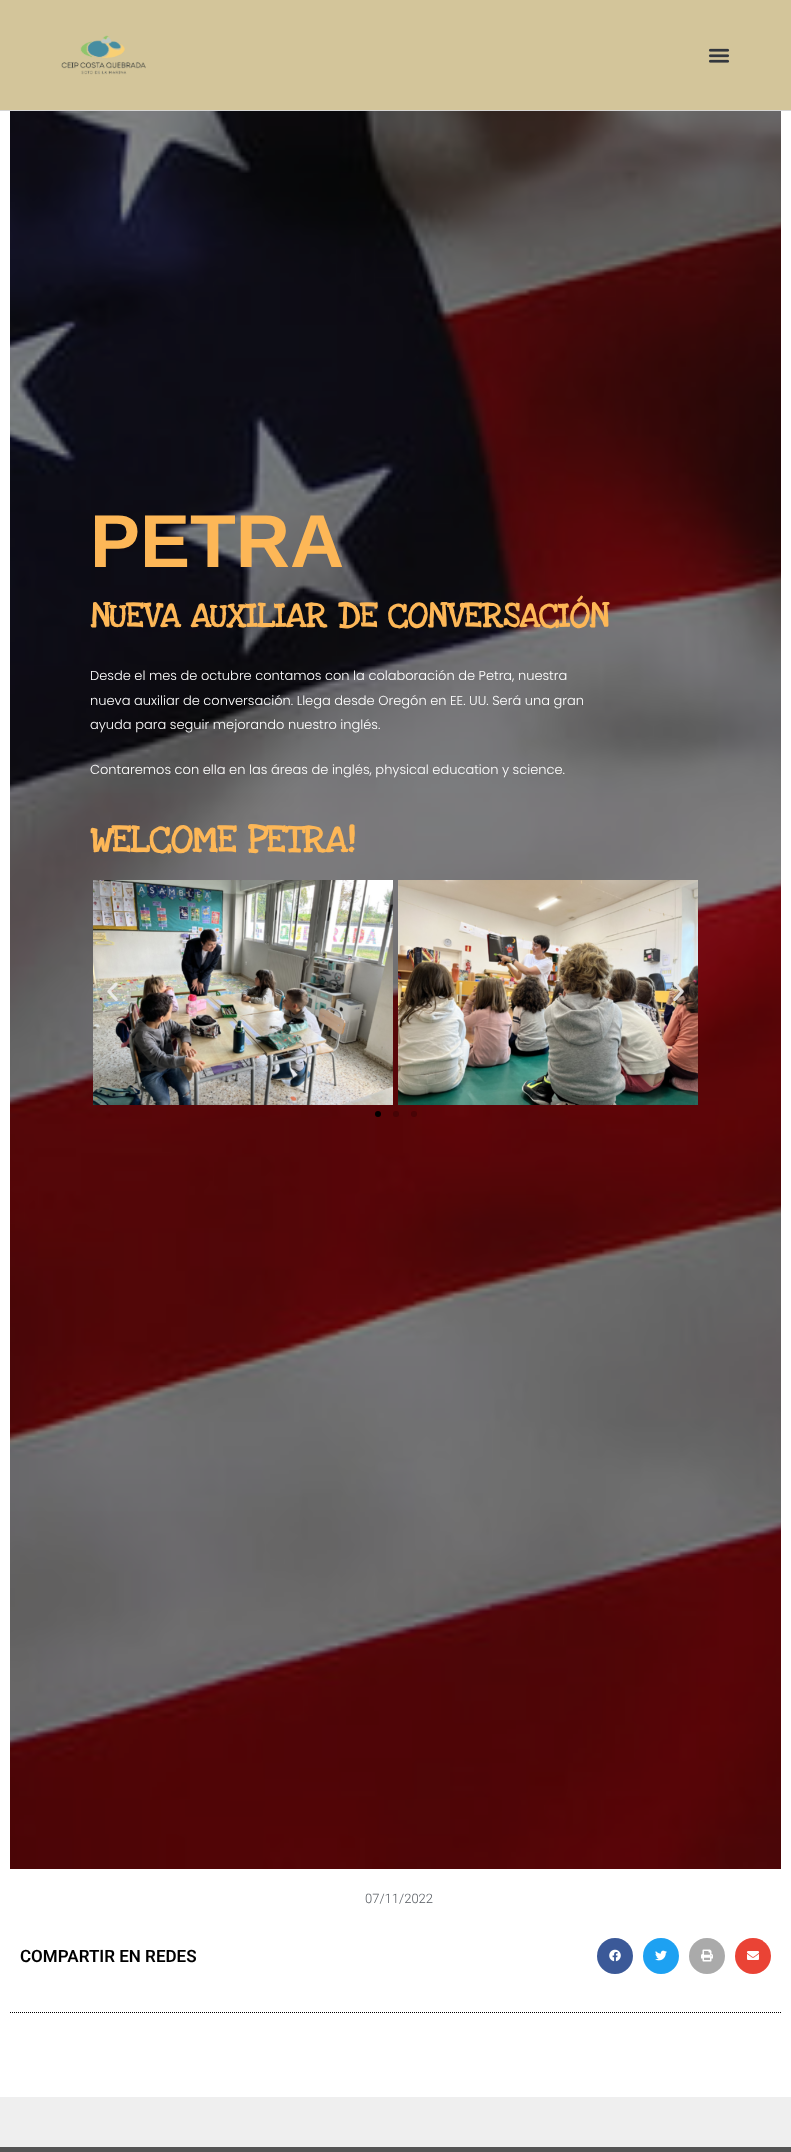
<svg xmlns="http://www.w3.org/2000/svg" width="791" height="2152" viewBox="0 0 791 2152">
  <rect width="100%" height="100%" fill="#efefef"/>
  <rect x="0" y="0" width="791" height="110" fill="#d3c59a"/>
  <rect x="0" y="110" width="791" height="1" fill="#d6d6d6"/>
  <image x="61" y="35" width="85" height="40" href="img1.png"/>
  <image x="708" y="48" width="22" height="15" href="img2.png"/>
  <rect x="0" y="111" width="791" height="1986" fill="#ffffff"/>
  <image x="10" y="111" width="771" height="1758" href="img3.png"/>
  <text x="90" y="567" font-family="Liberation Sans" font-size="75" font-weight="bold" fill="#fdb757">PETRA</text>
  <text x="90" y="627" font-family="Love Ya Like A Sister" font-size="35" font-weight="bold" fill="#fdb757">NUEVA AUXILIAR DE CONVERSACIÓN</text>
  <text x="90" y="680" font-family="Poppins" font-size="13" font-weight="300" fill="#ffffff">Desde el mes de octubre contamos con la colaboración de Petra, nuestra</text>
  <text x="90" y="705" font-family="Poppins" font-size="13" font-weight="300" fill="#ffffff">nueva auxiliar de conversación. Llega desde Oregón en EE. UU. Será una gran</text>
  <text x="90" y="729" font-family="Poppins" font-size="13" font-weight="300" fill="#ffffff">ayuda para seguir mejorando nuestro inglés.</text>
  <text x="90" y="774" font-family="Poppins" font-size="13" font-weight="300" fill="#ffffff">Contaremos con ella en las áreas de inglés, physical education y science.</text>
  <text x="90" y="852" font-family="Love Ya Like A Sister" font-size="38" font-weight="bold" fill="#fdb757">WELCOME PETRA!</text>
  <image x="93" y="880" width="300" height="225" href="img4.png"/>
  <image x="398" y="880" width="300" height="225" href="img5.png"/>
  <image x="107" y="982" width="11" height="19" href="img6.png"/>
  <image x="673" y="983" width="11" height="19" href="img7.png"/>
  <circle cx="378" cy="1114" r="3" fill="#000000"/>
  <circle cx="396" cy="1114" r="3" fill="#460406"/>
  <circle cx="414" cy="1114" r="3" fill="#480406"/>
  <text x="365" y="1903" font-family="Roboto" font-size="13" font-weight="300" fill="#54595f">07/11/2022</text>
  <text x="20" y="1962" font-family="Roboto" font-size="17" font-weight="600" fill="#000000">COMPARTIR EN REDES</text>
  <circle cx="615" cy="1956" r="18" fill="#3b5998"/>
  <image x="609" y="1949" width="12" height="13" href="img8.png"/>
  <circle cx="661" cy="1956" r="18" fill="#1da1f2"/>
  <image x="655" y="1950" width="12" height="11" href="img9.png"/>
  <circle cx="707" cy="1956" r="18" fill="#aaaaaa"/>
  <image x="701" y="1949" width="12" height="13" href="img10.png"/>
  <circle cx="753" cy="1956" r="18" fill="#ea4335"/>
  <image x="747" y="1951" width="12" height="9" href="img11.png"/>
  <path d="M10 2012.5H781" fill="none" stroke="#000000" stroke-dasharray="1 1"/>
  <rect x="0" y="2147" width="791" height="5" fill="#545454"/>
</svg>
